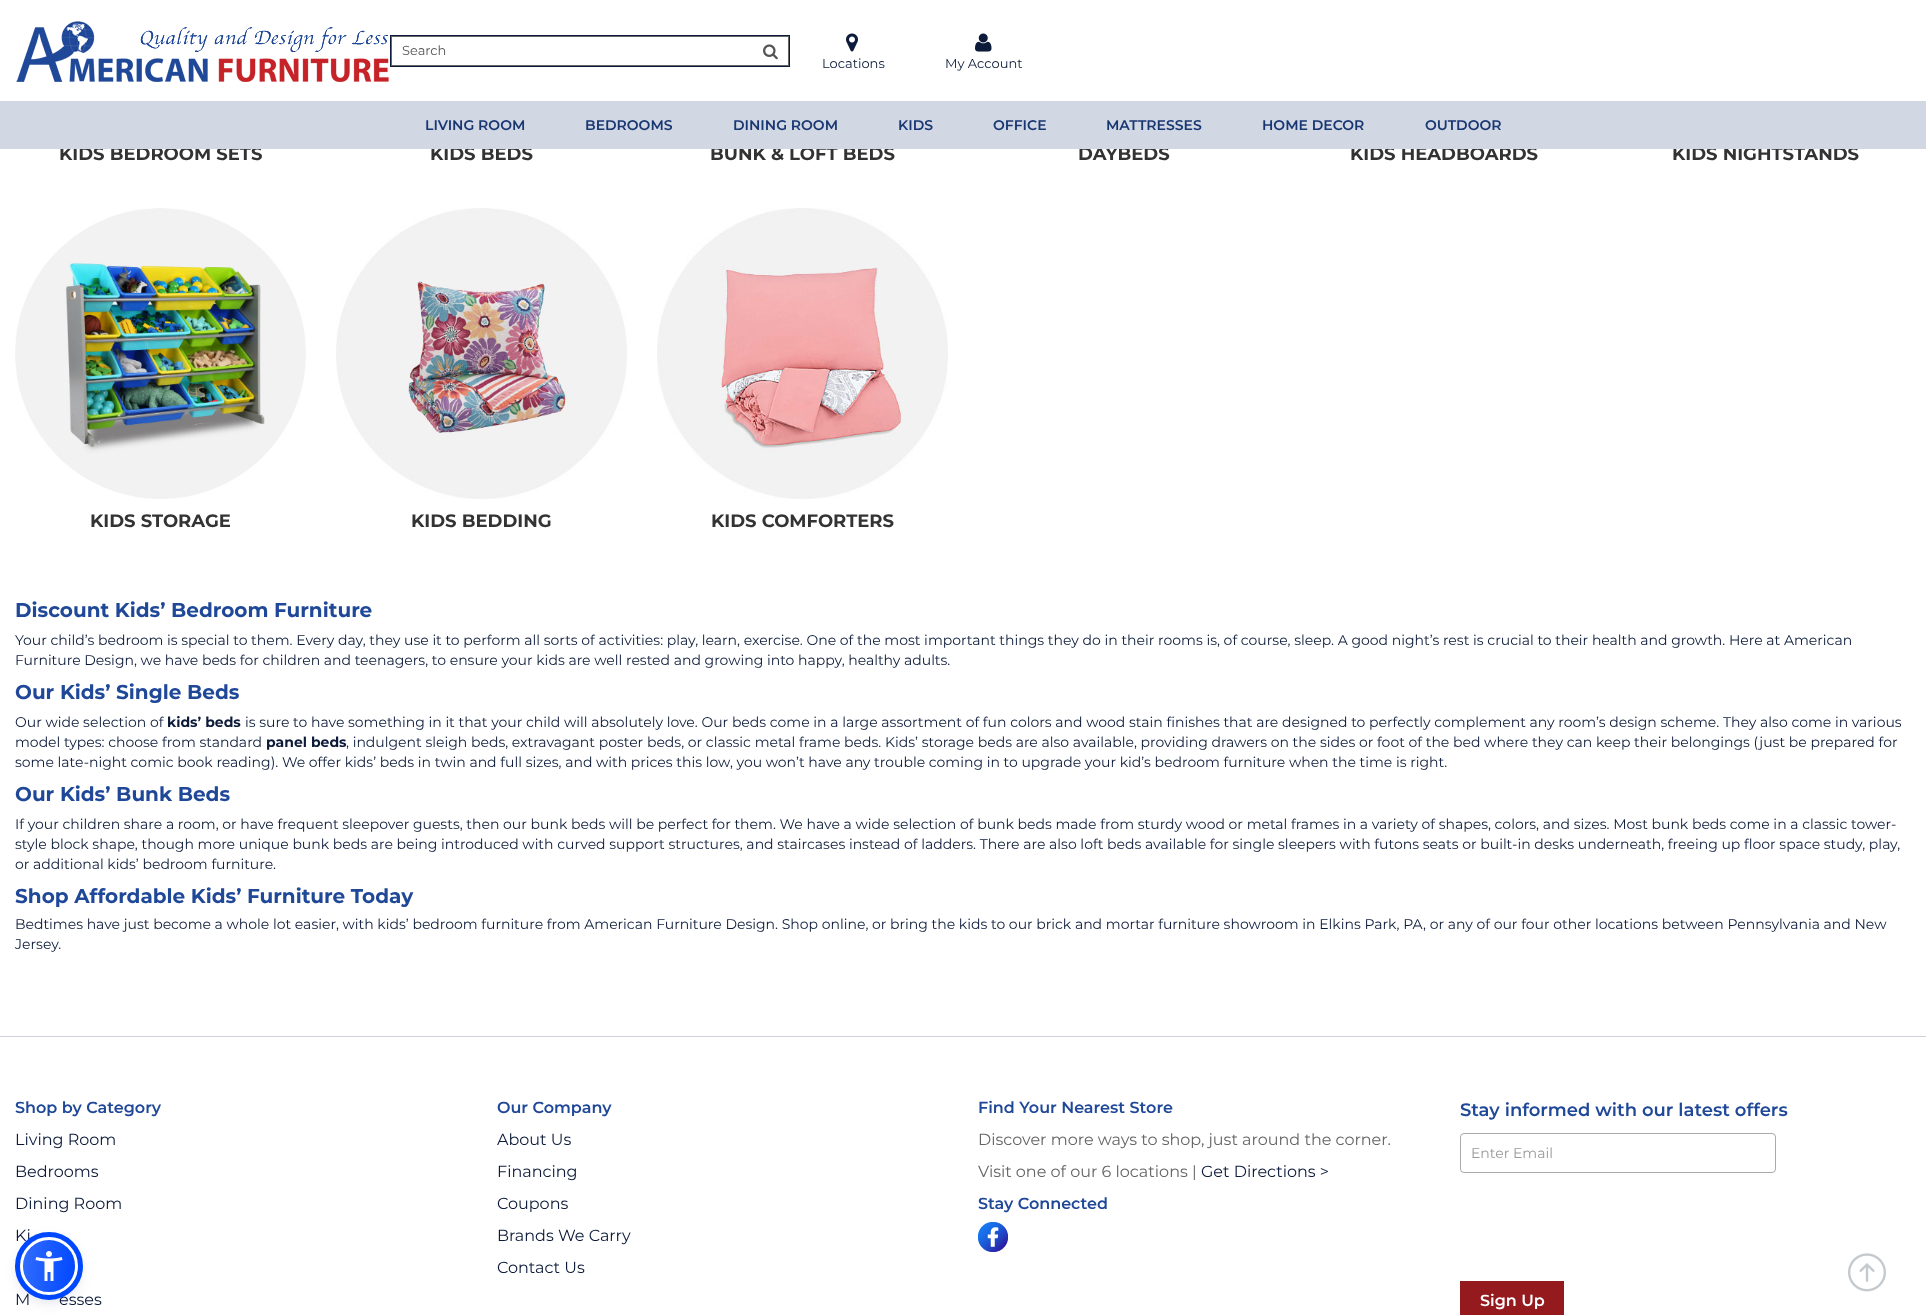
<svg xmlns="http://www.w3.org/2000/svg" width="1926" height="1315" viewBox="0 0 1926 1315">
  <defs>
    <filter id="blur1" x="-50%" y="-200%" width="200%" height="500%"><feGaussianBlur stdDeviation="2"/></filter>
    <filter id="blur2" x="-50%" y="-200%" width="200%" height="500%"><feGaussianBlur stdDeviation="7.5"/></filter>
    <clipPath id="clip1"><rect x="20" y="1237" width="58" height="58" rx="29"/></clipPath>
    <linearGradient id="g1" gradientUnits="userSpaceOnUse" x1="21" y1="1263" x2="77" y2="1269"><stop offset="0" stop-color="#326cff"/><stop offset="1" stop-color="#0048ff"/></linearGradient>
  </defs>
  <rect width="100%" height="100%" fill="#ffffff"/>
  <image x="16" y="21" width="373" height="61" href="img1.png"/>
  <rect x="390.5" y="35.5" width="399" height="31" fill="none" stroke="#0c1b39"/>
  <rect x="391.5" y="36.5" width="397" height="29" fill="none" stroke="#666666"/>
  <text x="402" y="55" font-family="Montserrat" font-size="13" fill="#555555">Search</text>
  <image x="763" y="44" width="15" height="16" href="img2.png"/>
  <image x="846" y="33" width="12" height="19" href="img3.png"/>
  <text x="822" y="68" font-family="Montserrat" font-size="13" fill="#0c1b39">Locations</text>
  <image x="975" y="33" width="17" height="19" href="img4.png"/>
  <text x="945" y="68" font-family="Montserrat" font-size="13" fill="#0c1b39">My Account</text>
  <text x="59" y="160" font-family="Montserrat" font-size="18" font-weight="bold" fill="#333333">KIDS BEDROOM SETS</text>
  <text x="430" y="160" font-family="Montserrat" font-size="18" font-weight="bold" fill="#333333">KIDS BEDS</text>
  <text x="710" y="160" font-family="Montserrat" font-size="18" font-weight="bold" fill="#333333">BUNK &amp; LOFT BEDS</text>
  <text x="1078" y="160" font-family="Montserrat" font-size="18" font-weight="bold" fill="#333333">DAYBEDS</text>
  <text x="1350" y="160" font-family="Montserrat" font-size="18" font-weight="bold" fill="#333333">KIDS HEADBOARDS</text>
  <text x="1672" y="160" font-family="Montserrat" font-size="18" font-weight="bold" fill="#333333">KIDS NIGHTSTANDS</text>
  <rect x="0" y="101" width="1926" height="48" fill="#d1d7e3"/>
  <text x="425" y="130" font-family="Montserrat" font-size="14" font-weight="600" fill="#183672">LIVING ROOM</text>
  <text x="585" y="130" font-family="Montserrat" font-size="14" font-weight="600" fill="#183672">BEDROOMS</text>
  <text x="733" y="130" font-family="Montserrat" font-size="14" font-weight="600" fill="#183672">DINING ROOM</text>
  <text x="898" y="130" font-family="Montserrat" font-size="14" font-weight="600" fill="#183672">KIDS</text>
  <text x="993" y="130" font-family="Montserrat" font-size="14" font-weight="600" fill="#183672">OFFICE</text>
  <text x="1106" y="130" font-family="Montserrat" font-size="14" font-weight="600" fill="#183672">MATTRESSES</text>
  <text x="1262" y="130" font-family="Montserrat" font-size="14" font-weight="600" fill="#183672">HOME DECOR</text>
  <text x="1425" y="130" font-family="Montserrat" font-size="14" font-weight="600" fill="#183672">OUTDOOR</text>
  <image x="15" y="208" width="291" height="291" href="img5.png"/>
  <text x="90" y="527" font-family="Montserrat" font-size="18" font-weight="bold" fill="#333333">KIDS STORAGE</text>
  <image x="336" y="208" width="291" height="291" href="img6.png"/>
  <text x="411" y="527" font-family="Montserrat" font-size="18" font-weight="bold" fill="#333333">KIDS BEDDING</text>
  <image x="657" y="208" width="291" height="291" href="img7.png"/>
  <text x="711" y="527" font-family="Montserrat" font-size="18" font-weight="bold" fill="#333333">KIDS COMFORTERS</text>
  <text x="15" y="617" font-family="Montserrat" font-size="20" font-weight="bold" fill="#204898">Discount Kids’ Bedroom Furniture</text>
  <text x="15" y="645" font-family="Montserrat" font-size="14" fill="#0c1b39">Your child’s bedroom is special to them. Every day, they use it to perform all sorts of activities: play, learn, exercise. One of the most important things they do in their rooms is, of course, sleep. A good night’s rest is crucial to their health and growth. Here at American</text>
  <text x="15" y="665" font-family="Montserrat" font-size="14" fill="#0c1b39">Furniture Design, we have beds for children and teenagers, to ensure your kids are well rested and growing into happy, healthy adults.</text>
  <text x="15" y="699" font-family="Montserrat" font-size="20" font-weight="bold" fill="#204898">Our Kids’ Single Beds</text>
  <text x="15" y="727" font-family="Montserrat" font-size="14" fill="#0c1b39">Our wide selection of</text>
  <text x="167" y="727" font-family="Montserrat" font-size="14" font-weight="bold" fill="#0c1b39">kids’ beds</text>
  <text x="245" y="727" font-family="Montserrat" font-size="14" fill="#0c1b39">is sure to have something in it that your child will absolutely love. Our beds come in a large assortment of fun colors and wood stain finishes that are designed to perfectly complement any room’s design scheme. They also come in various</text>
  <text x="15" y="747" font-family="Montserrat" font-size="14" fill="#0c1b39">model types: choose from standard</text>
  <text x="266" y="747" font-family="Montserrat" font-size="14" font-weight="bold" fill="#0c1b39">panel beds</text>
  <text x="346" y="747" font-family="Montserrat" font-size="14" fill="#0c1b39">, indulgent sleigh beds, extravagant poster beds, or classic metal frame beds. Kids’ storage beds are also available, providing drawers on the sides or foot of the bed where they can keep their belongings (just be prepared for</text>
  <text x="15" y="767" font-family="Montserrat" font-size="14" fill="#0c1b39">some late-night comic book reading). We offer kids’ beds in twin and full sizes, and with prices this low, you won’t have any trouble coming in to upgrade your kid’s bedroom furniture when the time is right.</text>
  <text x="15" y="801" font-family="Montserrat" font-size="20" font-weight="bold" fill="#204898">Our Kids’ Bunk Beds</text>
  <text x="15" y="829" font-family="Montserrat" font-size="14" fill="#0c1b39">If your children share a room, or have frequent sleepover guests, then our bunk beds will be perfect for them. We have a wide selection of bunk beds made from sturdy wood or metal frames in a variety of shapes, colors, and sizes. Most bunk beds come in a classic tower-</text>
  <text x="15" y="849" font-family="Montserrat" font-size="14" fill="#0c1b39">style block shape, though more unique bunk beds are being introduced with curved support structures, and staircases instead of ladders. There are also loft beds available for single sleepers with futons seats or built-in desks underneath, freeing up floor space study, play,</text>
  <text x="15" y="869" font-family="Montserrat" font-size="14" fill="#0c1b39">or additional kids’ bedroom furniture.</text>
  <text x="15" y="903" font-family="Montserrat" font-size="20" font-weight="bold" fill="#204898">Shop Affordable Kids’ Furniture Today</text>
  <text x="15" y="929" font-family="Montserrat" font-size="14" fill="#0c1b39">Bedtimes have just become a whole lot easier, with kids’ bedroom furniture from American Furniture Design. Shop online, or bring the kids to our brick and mortar furniture showroom in Elkins Park, PA, or any of our four other locations between Pennsylvania and New</text>
  <text x="15" y="949" font-family="Montserrat" font-size="14" fill="#0c1b39">Jersey.</text>
  <rect x="0" y="1036" width="1926" height="1" fill="#ced1d7"/>
  <text x="15" y="1113" font-family="Montserrat" font-size="16" font-weight="600" fill="#204898">Shop by Category</text>
  <text x="15" y="1145" font-family="Montserrat" font-size="16" fill="#0c1b39">Living Room</text>
  <text x="15" y="1177" font-family="Montserrat" font-size="16" fill="#0c1b39">Bedrooms</text>
  <text x="15" y="1209" font-family="Montserrat" font-size="16" fill="#0c1b39">Dining Room</text>
  <text x="15" y="1241" font-family="Montserrat" font-size="16" fill="#0c1b39">Ki</text>
  <text x="15" y="1305" font-family="Montserrat" font-size="16" fill="#0c1b39">M</text>
  <text x="59" y="1305" font-family="Montserrat" font-size="16" fill="#0c1b39">esses</text>
  <text x="497" y="1113" font-family="Montserrat" font-size="16" font-weight="600" fill="#204898">Our Company</text>
  <text x="497" y="1145" font-family="Montserrat" font-size="16" fill="#0c1b39">About Us</text>
  <text x="497" y="1177" font-family="Montserrat" font-size="16" fill="#0c1b39">Financing</text>
  <text x="497" y="1209" font-family="Montserrat" font-size="16" fill="#0c1b39">Coupons</text>
  <text x="497" y="1241" font-family="Montserrat" font-size="16" fill="#0c1b39">Brands We Carry</text>
  <text x="497" y="1273" font-family="Montserrat" font-size="16" fill="#0c1b39">Contact Us</text>
  <text x="978" y="1113" font-family="Montserrat" font-size="16" font-weight="600" fill="#204898">Find Your Nearest Store</text>
  <text x="978" y="1145" font-family="Montserrat" font-size="16" fill="#666666">Discover more ways to shop, just around the corner.</text>
  <text x="978" y="1177" font-family="Montserrat" font-size="16" fill="#666666">Visit one of our 6 locations |</text>
  <text x="1201" y="1177" font-family="Montserrat" font-size="16" fill="#0c1b39">Get Directions &gt;</text>
  <text x="978" y="1209" font-family="Montserrat" font-size="16" font-weight="600" fill="#204898">Stay Connected</text>
  <image x="978" y="1222" width="30" height="30" href="img8.png"/>
  <text x="1460" y="1116" font-family="Montserrat" font-size="18" font-weight="600" fill="#204898">Stay informed with our latest offers</text>
  <rect x="1460.5" y="1133.5" width="315" height="39" rx="3.5" fill="none" stroke="#aaaaaa"/>
  <text x="1471" y="1158" font-family="Montserrat" font-size="14" fill="#999999">Enter Email</text>
  <rect x="1460" y="1281" width="104" height="34" fill="#941a1d"/>
  <text x="1480" y="1306" font-family="Montserrat" font-size="16" font-weight="600" fill="#ffffff">Sign Up</text>
  <rect x="20" y="1239" width="58" height="58" rx="29" fill="#5d6494" fill-opacity="0.2" filter="url(#blur1)"/>
  <rect x="20" y="1242" width="58" height="58" rx="29" fill="#252c61" fill-opacity="0.15" filter="url(#blur2)"/>
  <g clip-path="url(#clip1)">
    <rect x="23" y="1240" width="52" height="52" fill="url(#g1)"/>
  </g>
  <circle cx="49" cy="1266" r="27.5" fill="none" stroke="#ffffff" stroke-width="3"/>
  <circle cx="49" cy="1266" r="31.5" fill="none" stroke="#0048ff" stroke-width="5"/>
  <image x="35" y="1251" width="28" height="30" href="img9.png"/>
  <image x="1848" y="1253" width="38" height="39" href="img10.png"/>
</svg>
